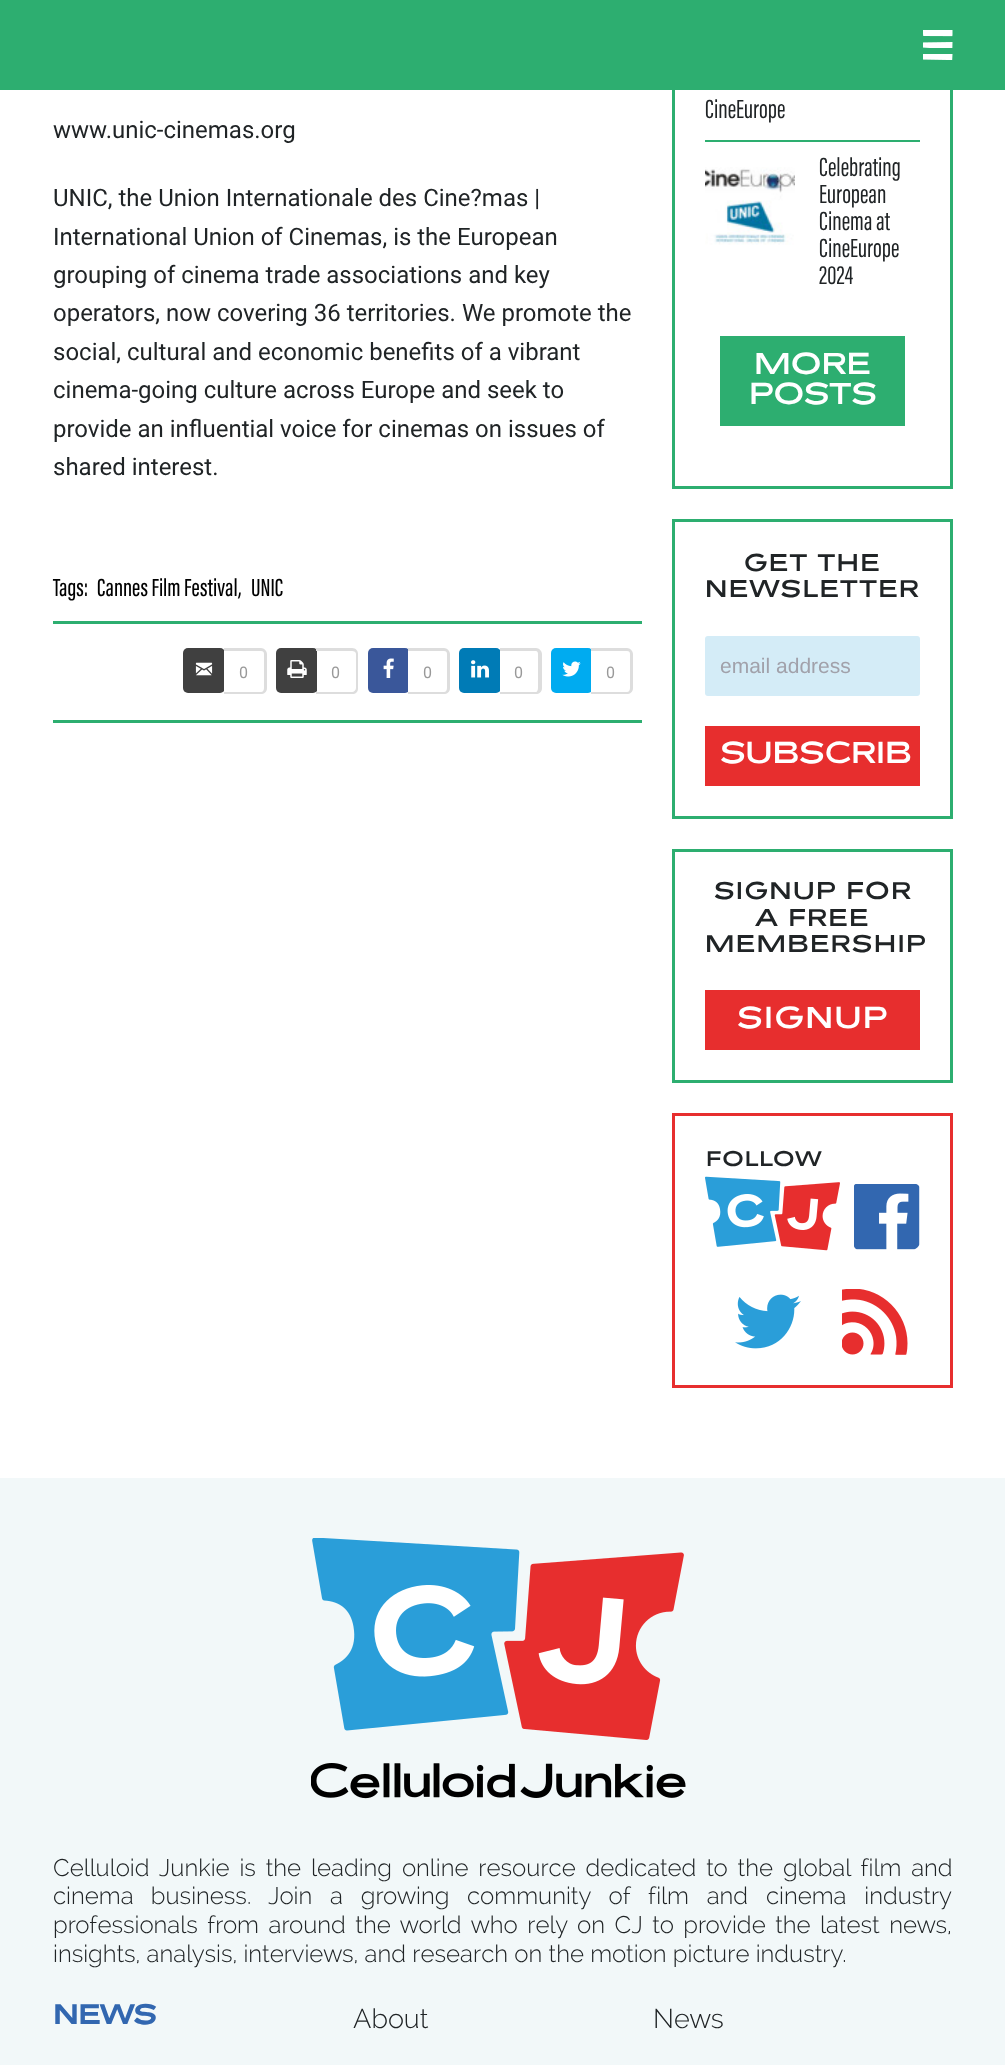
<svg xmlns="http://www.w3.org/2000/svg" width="1005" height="2065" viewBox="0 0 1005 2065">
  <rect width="100%" height="100%" fill="#ffffff"/>
  <rect x="673.5" y="-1.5" width="278" height="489" fill="none" stroke="#2dae70" stroke-width="3"/>
  <rect x="0" y="0" width="1005" height="90" fill="#2dae70"/>
  <image x="923" y="30" width="30" height="30" href="img1.png"/>
  <text x="53" y="138" font-family="Roboto" font-size="24" fill="#202426">www.unic-cinemas.org</text>
  <text x="53" y="206" font-family="Roboto" font-size="24" fill="#202426">UNIC, the Union Internationale des Cine?mas |</text>
  <text x="53" y="245" font-family="Roboto" font-size="24" fill="#202426">International Union of Cinemas, is the European</text>
  <text x="53" y="283" font-family="Roboto" font-size="24" fill="#202426">grouping of cinema trade associations and key</text>
  <text x="53" y="321" font-family="Roboto" font-size="24" fill="#202426">operators, now covering 36 territories. We promote the</text>
  <text x="53" y="360" font-family="Roboto" font-size="24" fill="#202426">social, cultural and economic benefits of a vibrant</text>
  <text x="53" y="398" font-family="Roboto" font-size="24" fill="#202426">cinema-going culture across Europe and seek to</text>
  <text x="53" y="437" font-family="Roboto" font-size="24" fill="#202426">provide an influential voice for cinemas on issues of</text>
  <text x="53" y="475" font-family="Roboto" font-size="24" fill="#202426">shared interest.</text>
  <rect x="53" y="720" width="589" height="3" fill="#2dae70"/>
  <rect x="53" y="621" width="589" height="3" fill="#2dae70"/>
  <text x="53" y="596" font-family="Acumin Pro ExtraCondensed" font-size="25.5" font-weight="500" fill="#000000">Tags:</text>
  <text x="97" y="596" font-family="Acumin Pro ExtraCondensed" font-size="25.5" font-weight="500" fill="#000000">Cannes Film Festival,</text>
  <text x="251" y="596" font-family="Acumin Pro ExtraCondensed" font-size="25.5" font-weight="500" fill="#000000">UNIC</text>
  <rect x="183" y="648" width="42" height="45" rx="5" fill="#404040"/>
  <image x="195" y="662" width="18" height="14" href="img2.png"/>
  <path d="M224 651H261C262.5 651 264 652.5 264 654V689C264 690.5 262.5 692 261 692H224Z" fill="#ffffff"/>
  <path d="M224 648H261C264 648 267 651 267 654V688C267 692 264 694 261 694H224ZM224 651H261C263 651 264 652 264 654V688C264 690 263 692 261 692H224Z" fill="#dddddd" fill-rule="evenodd"/>
  <text x="239" y="678" font-family="Roboto" font-size="16" fill="#999999">0</text>
  <rect x="276" y="648" width="42" height="45" rx="5" fill="#404040"/>
  <image x="287" y="660" width="20" height="18" href="img3.png"/>
  <path d="M317 651H353C354.5 651 356 652.5 356 654V689C356 690.5 354.5 692 353 692H317Z" fill="#ffffff"/>
  <path d="M316 648H352C356 648 358 651 358 654V688C358 692 356 694 352 694H316ZM316 651H352C354 651 356 652 356 654V688C356 690 354 692 352 692H316Z" fill="#dddddd" fill-rule="evenodd"/>
  <text x="331" y="678" font-family="Roboto" font-size="16" fill="#999999">0</text>
  <rect x="368" y="648" width="42" height="45" rx="5" fill="#3a579a"/>
  <image x="383" y="658" width="11" height="20" href="img4.png"/>
  <path d="M408 651H444C445.5 651 447 652.5 447 654V689C447 690.5 445.5 692 444 692H408Z" fill="#ffffff"/>
  <path d="M408 648H444C447 648 450 651 450 654V688C450 692 447 694 444 694H408ZM408 651H444C446 651 447 652 447 654V688C447 690 446 692 444 692H408Z" fill="#dddddd" fill-rule="evenodd"/>
  <text x="423" y="678" font-family="Roboto" font-size="16" fill="#999999">0</text>
  <rect x="459" y="648" width="42" height="45" rx="5" fill="#007bb6"/>
  <image x="471" y="660" width="18" height="18" href="img5.png"/>
  <path d="M500 651H536C537.5 651 539 652.5 539 654V689C539 690.5 537.5 692 536 692H500Z" fill="#ffffff"/>
  <path d="M500 648H536C539 648 542 651 542 654V688C542 692 539 694 536 694H500ZM500 651H536C537 651 538 652 538 654V688C538 690 537 692 536 692H500Z" fill="#dddddd" fill-rule="evenodd"/>
  <text x="514" y="678" font-family="Roboto" font-size="16" fill="#999999">0</text>
  <rect x="551" y="648" width="42" height="45" rx="5" fill="#00abf0"/>
  <image x="562" y="661" width="19" height="16" href="img6.png"/>
  <path d="M591 651H627C628.5 651 630 652.5 630 654V689C630 690.5 628.5 692 627 692H591Z" fill="#ffffff"/>
  <path d="M591 648H627C630 648 633 651 633 654V688C633 692 630 694 627 694H591ZM591 651H627C629 651 630 652 630 654V688C630 690 629 692 627 692H591Z" fill="#dddddd" fill-rule="evenodd"/>
  <text x="606" y="678" font-family="Roboto" font-size="16" fill="#999999">0</text>
  <rect x="705" y="140" width="215" height="2" fill="#2dae70"/>
  <text x="705" y="118" font-family="Acumin Pro ExtraCondensed" font-size="27" fill="#202426">CineEurope</text>
  <image x="705" y="167" width="90" height="78" href="img7.png"/>
  <text x="819" y="176" font-family="Acumin Pro ExtraCondensed" font-size="27" fill="#202426">Celebrating</text>
  <text x="819" y="203" font-family="Acumin Pro ExtraCondensed" font-size="27" fill="#202426">European</text>
  <text x="819" y="230" font-family="Acumin Pro ExtraCondensed" font-size="27" fill="#202426">Cinema at</text>
  <text x="819" y="257" font-family="Acumin Pro ExtraCondensed" font-size="27" fill="#202426">CineEurope</text>
  <text x="819" y="284" font-family="Acumin Pro ExtraCondensed" font-size="27" fill="#202426">2024</text>
  <rect x="720" y="336" width="185" height="90" fill="#2dae70"/>
  <text x="754" y="374" font-family="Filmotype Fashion" font-size="30" fill="#ffffff">MORE</text>
  <text x="749" y="404" font-family="Filmotype Fashion" font-size="30" fill="#ffffff">POSTS</text>
  <rect x="673.5" y="520.5" width="278" height="297" fill="none" stroke="#2dae70" stroke-width="3"/>
  <text x="744" y="571" font-family="Filmotype Fashion" font-size="24" letter-spacing="1.4" fill="#202426">GET THE</text>
  <text x="705" y="597" font-family="Filmotype Fashion" font-size="24" letter-spacing="1.4" fill="#202426">NEWSLETTER</text>
  <rect x="705" y="636" width="215" height="60" rx="3" fill="#d4ecf7"/>
  <text x="720" y="673" font-family="Liberation Sans" font-size="21" fill="#a1a1aa">email address</text>
  <rect x="705" y="726" width="215" height="60" fill="#e72e2e"/>
  <text x="720" y="763" font-family="Filmotype Fashion" font-size="30" fill="#ffffff">SUBSCRIB</text>
  <rect x="673.5" y="850.5" width="278" height="231" fill="none" stroke="#2dae70" stroke-width="3"/>
  <text x="714" y="899" font-family="Filmotype Fashion" font-size="24" letter-spacing="1.4" fill="#202426">SIGNUP FOR</text>
  <text x="755" y="926" font-family="Filmotype Fashion" font-size="24" letter-spacing="1.4" fill="#202426">A FREE</text>
  <text x="705" y="952" font-family="Filmotype Fashion" font-size="24" letter-spacing="1.4" fill="#202426">MEMBERSHIP</text>
  <rect x="705" y="990" width="215" height="60" fill="#e72e2e"/>
  <text x="737" y="1028" font-family="Filmotype Fashion" font-size="30" letter-spacing="1.4" fill="#ffffff">SIGNUP</text>
  <rect x="673.5" y="1114.5" width="278" height="272" fill="none" stroke="#e72e2e" stroke-width="3"/>
  <text x="706" y="1166" font-family="Filmotype Fashion" font-size="21" letter-spacing="1" fill="#202426">FOLLOW</text>
  <image x="705" y="1176" width="135" height="75" href="img8.png"/>
  <image x="854" y="1184" width="66" height="66" href="img9.png"/>
  <image x="735" y="1294" width="66" height="55" href="img10.png"/>
  <image x="842" y="1289" width="66" height="66" href="img11.png"/>
  <rect x="0" y="1478" width="1005" height="587" fill="#f2f8f9"/>
  <image x="312" y="1538" width="372" height="202" href="img12.png"/>
  <image x="311" y="1763" width="375" height="36" href="img13.png"/>
  <text x="53" y="1876" word-spacing="3.6" font-family="Raleway" font-size="24" font-weight="300" fill="#202426">Celluloid Junkie is the leading online resource dedicated to the global film and</text>
  <text x="53" y="1904" word-spacing="11" font-family="Raleway" font-size="24" font-weight="300" fill="#202426">cinema business.</text>
  <text x="268" y="1904" word-spacing="11.5" font-family="Raleway" font-size="24" font-weight="300" fill="#202426">Join a growing community of film and cinema industry</text>
  <text x="53" y="1933" word-spacing="3.25" font-family="Raleway" font-size="24" font-weight="300" fill="#202426">professionals from around the world who rely on CJ to provide the latest news,</text>
  <text x="53" y="1962" font-family="Raleway" font-size="24" font-weight="300" fill="#202426">insights, analysis, interviews, and research on the motion picture industry.</text>
  <text x="53" y="2024" font-family="Filmotype Fashion" font-size="27" font-weight="bold" fill="#3267b0">NEWS</text>
  <text x="353" y="2028" font-family="Raleway" font-size="27" font-weight="300" fill="#202426">About</text>
  <text x="653" y="2028" font-family="Raleway" font-size="27" font-weight="300" fill="#202426">News</text>
</svg>
